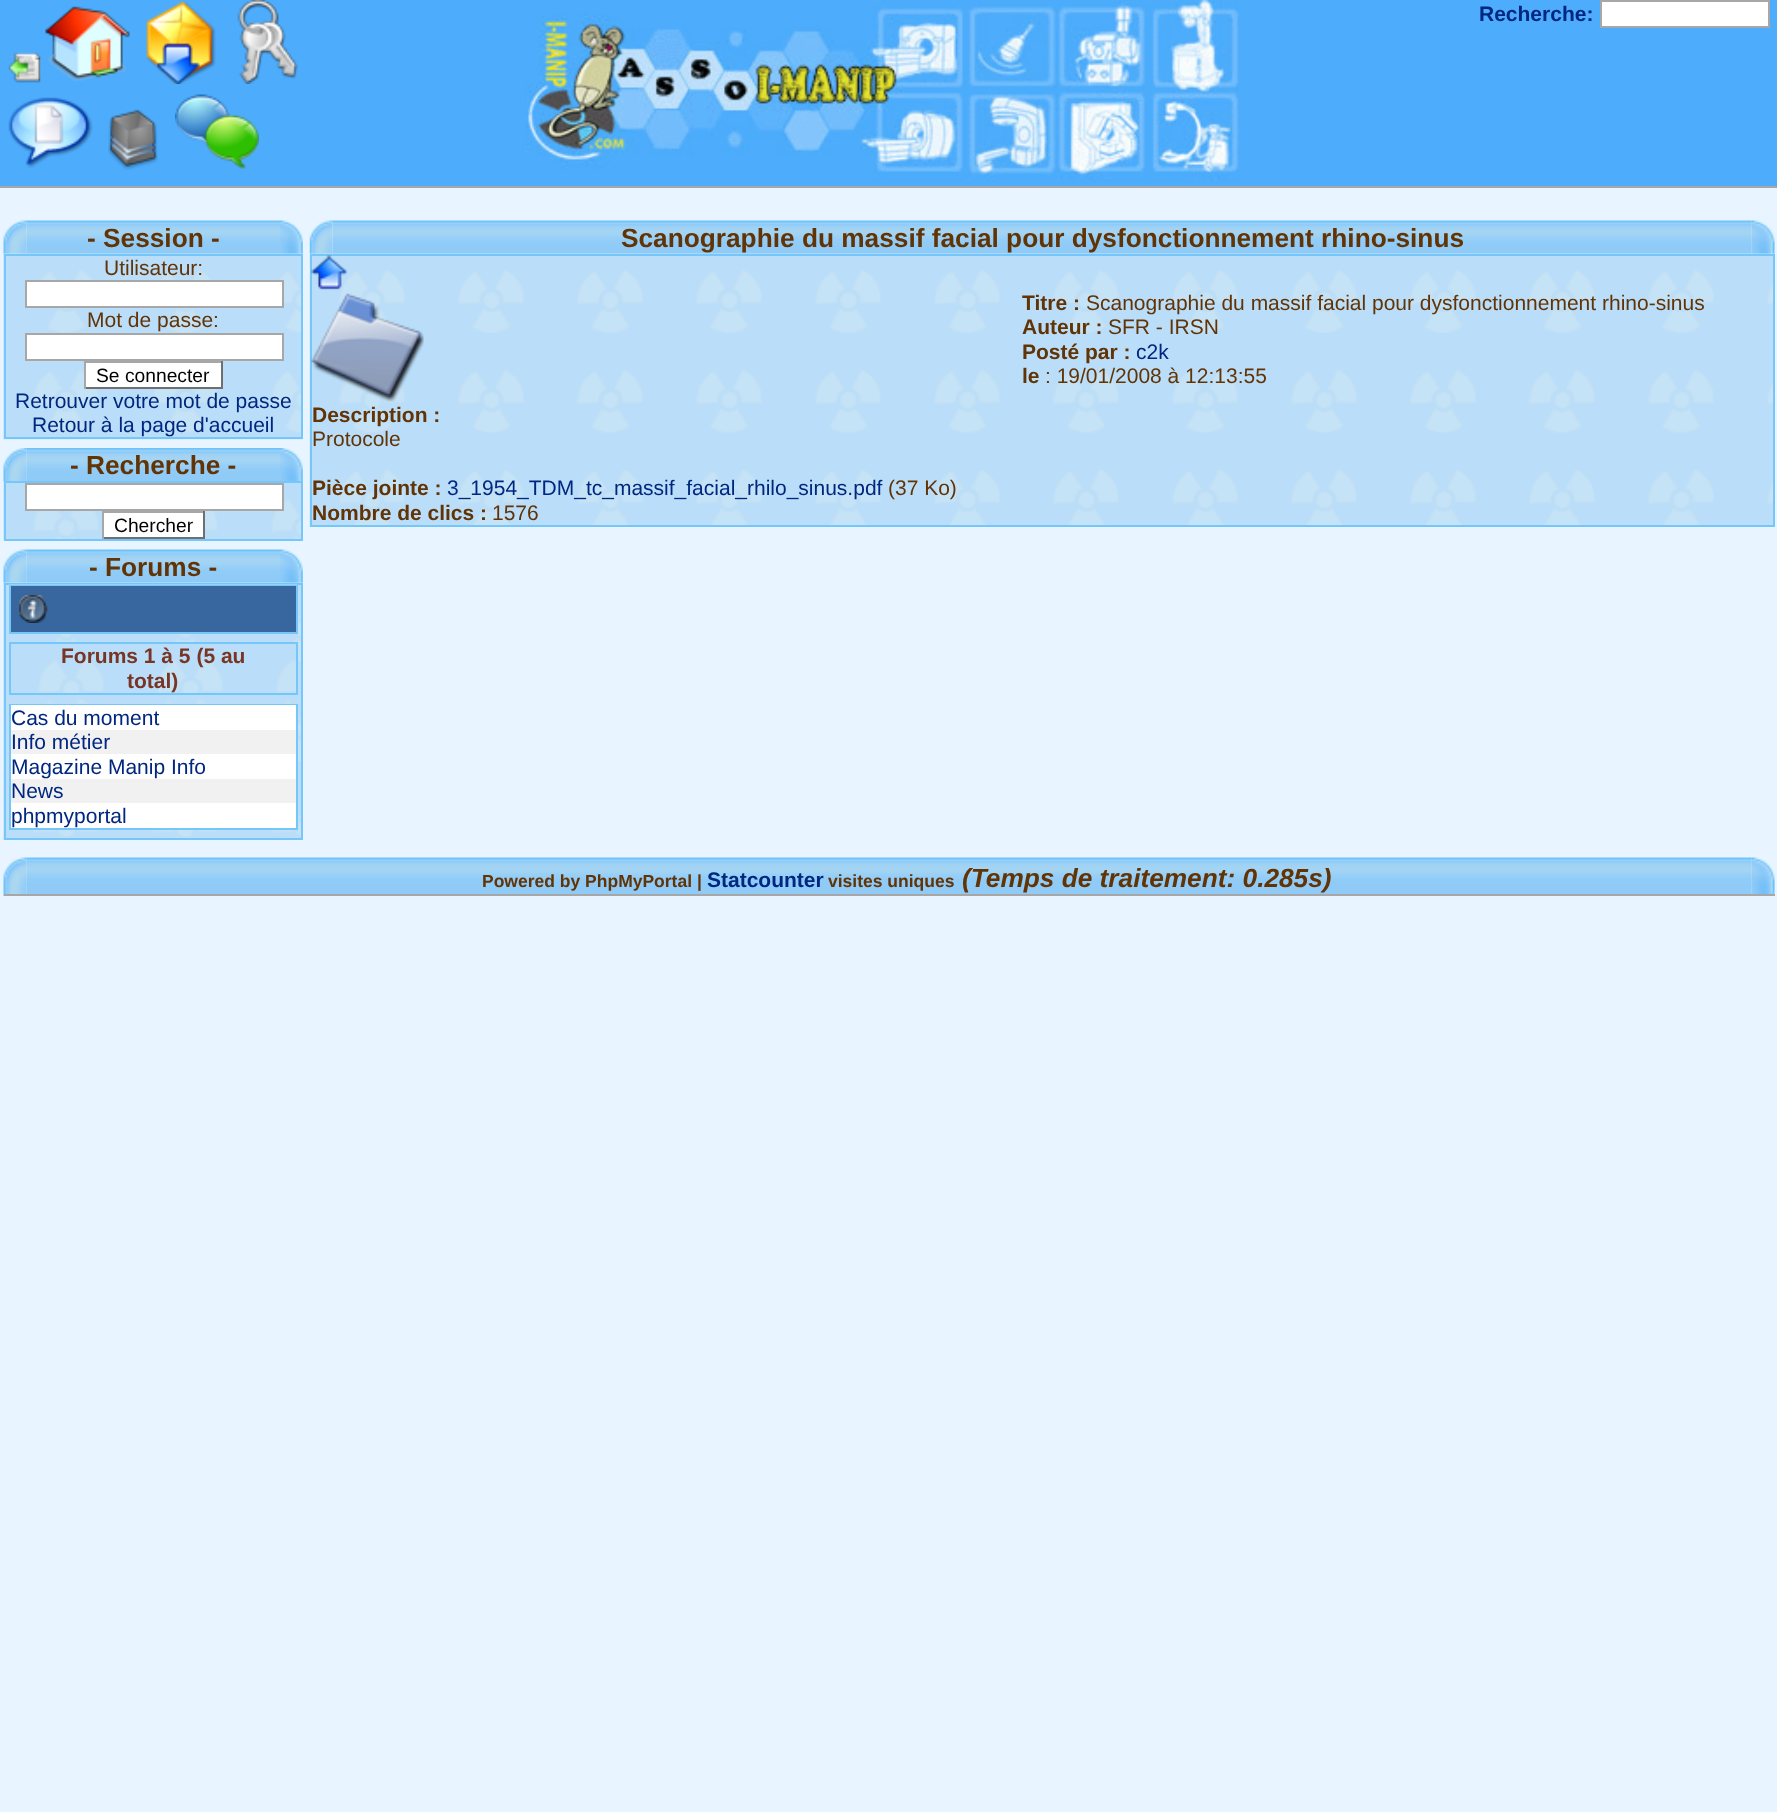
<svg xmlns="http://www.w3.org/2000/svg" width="1777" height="1812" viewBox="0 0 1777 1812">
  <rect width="100%" height="100%" fill="#e8f4ff"/>
  <rect x="0" y="0" width="1777" height="186" fill="#4dacfc"/>
  <image x="525" y="0" width="714" height="182" href="img1.png"/>
  <rect x="0" y="186" width="1777" height="2" fill="#a7a7a7"/>
  <image x="8" y="52" width="33" height="31" href="img2.png"/>
  <image x="45" y="6" width="85" height="76" href="img3.png"/>
  <image x="146" y="1" width="70" height="83" href="img4.png"/>
  <image x="237" y="0" width="61" height="84" href="img5.png"/>
  <image x="8" y="97" width="85" height="71" href="img6.png"/>
  <image x="108" y="109" width="50" height="61" href="img7.png"/>
  <image x="175" y="94" width="84" height="75" href="img8.png"/>
  <text x="1479" y="21" font-family="Liberation Sans" font-size="21" font-weight="bold" fill="#002780">Recherche:</text>
  <rect x="1602" y="2" width="166" height="24" fill="#ffffff"/>
  <rect x="1600" y="0" width="169" height="2" fill="#a7a7a7"/>
  <rect x="1768" y="0" width="2" height="28" fill="#a7a7a7"/>
  <rect x="1600" y="26" width="169" height="2" fill="#a7a7a7"/>
  <rect x="1600" y="0" width="2" height="28" fill="#a7a7a7"/>
  <image x="3" y="220" width="24" height="34" href="img9.png"/>
  <image x="26" y="220" width="254" height="34" href="img10.png"/>
  <text x="87" y="247" font-family="Liberation Sans" font-size="26.25" font-weight="bold" fill="#623304">- Session -</text>
  <image x="280" y="220" width="23" height="34" href="img11.png"/>
  <image x="3" y="253" width="300" height="187" href="img12.png"/>
  <rect x="5" y="255" width="297" height="183" fill="none" stroke="#76c7f9" stroke-width="2"/>
  <text x="104" y="275" font-family="Liberation Sans" font-size="21" fill="#623304">Utilisateur:</text>
  <rect x="27" y="282" width="255" height="24" fill="#ffffff"/>
  <rect x="25" y="280" width="259" height="2" fill="#a7a7a7"/>
  <rect x="282" y="280" width="2" height="28" fill="#a7a7a7"/>
  <rect x="25" y="306" width="259" height="2" fill="#a7a7a7"/>
  <rect x="25" y="280" width="2" height="28" fill="#a7a7a7"/>
  <text x="87" y="327" font-family="Liberation Sans" font-size="21" fill="#623304">Mot de passe:</text>
  <rect x="27" y="335" width="255" height="24" fill="#ffffff"/>
  <rect x="25" y="333" width="259" height="2" fill="#a7a7a7"/>
  <rect x="282" y="333" width="2" height="28" fill="#a7a7a7"/>
  <rect x="25" y="359" width="259" height="2" fill="#a7a7a7"/>
  <rect x="25" y="333" width="2" height="28" fill="#a7a7a7"/>
  <rect x="86" y="363" width="135" height="24" fill="#ffffff"/>
  <rect x="84" y="361" width="138" height="2" fill="#a7a7a7"/>
  <rect x="221" y="361" width="2" height="28" fill="#6f6f6f"/>
  <rect x="84" y="387" width="138" height="2" fill="#6f6f6f"/>
  <rect x="84" y="361" width="2" height="28" fill="#a7a7a7"/>
  <text x="96" y="382" font-family="Liberation Sans" font-size="19.25" fill="#000000">Se connecter</text>
  <text x="15" y="408" font-family="Liberation Sans" font-size="21" fill="#002780">Retrouver votre mot de passe</text>
  <text x="32" y="432" font-family="Liberation Sans" font-size="21" fill="#002780">Retour à la page d'accueil</text>
  <image x="3" y="448" width="24" height="34" href="img13.png"/>
  <image x="26" y="448" width="254" height="33" href="img14.png"/>
  <text x="70" y="474" font-family="Liberation Sans" font-size="26.25" font-weight="bold" fill="#623304">- Recherche -</text>
  <image x="280" y="448" width="23" height="33" href="img15.png"/>
  <image x="3" y="481" width="298" height="60" href="img16.png"/>
  <rect x="5" y="482" width="297" height="58" fill="none" stroke="#76c7f9" stroke-width="2"/>
  <rect x="27" y="485" width="255" height="24" fill="#ffffff"/>
  <rect x="25" y="483" width="259" height="2" fill="#a7a7a7"/>
  <rect x="282" y="483" width="2" height="28" fill="#a7a7a7"/>
  <rect x="25" y="509" width="259" height="2" fill="#a7a7a7"/>
  <rect x="25" y="483" width="2" height="28" fill="#a7a7a7"/>
  <rect x="104" y="513" width="99" height="24" fill="#ffffff"/>
  <rect x="102" y="511" width="103" height="2" fill="#a7a7a7"/>
  <rect x="203" y="511" width="2" height="28" fill="#6f6f6f"/>
  <rect x="102" y="537" width="103" height="2" fill="#6f6f6f"/>
  <rect x="102" y="511" width="2" height="28" fill="#a7a7a7"/>
  <text x="114" y="532" font-family="Liberation Sans" font-size="19.25" fill="#000000">Chercher</text>
  <image x="3" y="549" width="24" height="34" href="img17.png"/>
  <image x="26" y="549" width="254" height="34" href="img18.png"/>
  <text x="89" y="576" font-family="Liberation Sans" font-size="26.25" font-weight="bold" fill="#623304">- Forums -</text>
  <image x="280" y="549" width="23" height="34" href="img19.png"/>
  <image x="3" y="582" width="300" height="258" href="img20.png"/>
  <rect x="5" y="584" width="297" height="255" fill="none" stroke="#76c7f9" stroke-width="2"/>
  <image x="8" y="584" width="290" height="50" href="img21.png"/>
  <rect x="10" y="586" width="287" height="47" fill="none" stroke="#76c7f9" stroke-width="2"/>
  <rect x="11" y="586" width="285" height="46" fill="#38679f"/>
  <image x="19" y="595" width="29" height="28" href="img22.png"/>
  <rect x="47" y="644" width="249" height="18" fill="#badef9"/>
  <image x="38" y="658" width="258" height="35" href="img23.png"/>
  <rect x="10" y="643" width="287" height="51" fill="none" stroke="#76c7f9" stroke-width="2"/>
  <text x="61" y="663" font-family="Liberation Sans" font-size="21" font-weight="bold" fill="#783524">Forums 1 à 5 (5 au</text>
  <text x="127" y="688" font-family="Liberation Sans" font-size="21" font-weight="bold" fill="#783524">total)</text>
  <image x="38" y="703" width="260" height="1" href="img24.png"/>
  <rect x="10" y="705" width="287" height="124" fill="none" stroke="#76c7f9" stroke-width="2"/>
  <rect x="11" y="705" width="285" height="25" fill="#ffffff"/>
  <text x="11" y="725" font-family="Liberation Sans" font-size="21" fill="#002780">Cas du moment</text>
  <rect x="11" y="730" width="285" height="24" fill="#f1f1f1"/>
  <text x="11" y="749" font-family="Liberation Sans" font-size="21" fill="#002780">Info métier</text>
  <rect x="11" y="754" width="285" height="25" fill="#ffffff"/>
  <text x="11" y="774" font-family="Liberation Sans" font-size="21" fill="#002780">Magazine Manip Info</text>
  <rect x="11" y="779" width="285" height="24" fill="#f1f1f1"/>
  <text x="11" y="798" font-family="Liberation Sans" font-size="21" fill="#002780">News</text>
  <rect x="11" y="803" width="285" height="25" fill="#ffffff"/>
  <text x="11" y="823" font-family="Liberation Sans" font-size="21" fill="#002780">phpmyportal</text>
  <image x="309" y="220" width="24" height="34" href="img25.png"/>
  <image x="332" y="220" width="1420" height="34" href="img26.png"/>
  <text x="621" y="247" font-family="Liberation Sans" font-size="26.25" font-weight="bold" fill="#623304">Scanographie du massif facial pour dysfonctionnement rhino-sinus</text>
  <image x="1751" y="220" width="24" height="34" href="img27.png"/>
  <image x="309" y="253" width="1466" height="274" href="img28.png"/>
  <rect x="311" y="255" width="1463" height="271" fill="none" stroke="#76c7f9" stroke-width="2"/>
  <image x="311" y="255" width="36" height="35" href="img29.png"/>
  <image x="311" y="293" width="113" height="109" href="img30.png"/>
  <text x="1022" y="310" font-family="Liberation Sans" font-size="21" font-weight="bold" fill="#623304">Titre :</text>
  <text x="1086" y="310" font-family="Liberation Sans" font-size="21" fill="#623304">Scanographie du massif facial pour dysfonctionnement rhino-sinus</text>
  <text x="1022" y="334" font-family="Liberation Sans" font-size="21" font-weight="bold" fill="#623304">Auteur :</text>
  <text x="1108" y="334" font-family="Liberation Sans" font-size="21" fill="#623304">SFR - IRSN</text>
  <text x="1022" y="359" font-family="Liberation Sans" font-size="21" font-weight="bold" fill="#623304">Posté par :</text>
  <text x="1136" y="359" font-family="Liberation Sans" font-size="21" fill="#002780">c2k</text>
  <text x="1022" y="383" font-family="Liberation Sans" font-size="21" font-weight="bold" fill="#623304">le</text>
  <text x="1045" y="383" font-family="Liberation Sans" font-size="21" fill="#623304">: 19/01/2008 à 12:13:55</text>
  <text x="312" y="422" font-family="Liberation Sans" font-size="21" font-weight="bold" fill="#623304">Description :</text>
  <text x="312" y="446" font-family="Liberation Sans" font-size="21" fill="#623304">Protocole</text>
  <text x="312" y="495" font-family="Liberation Sans" font-size="21" font-weight="bold" fill="#623304">Pièce jointe :</text>
  <text x="447" y="495" font-family="Liberation Sans" font-size="21" fill="#002780">3_1954_TDM_tc_massif_facial_rhilo_sinus.pdf</text>
  <text x="888" y="495" font-family="Liberation Sans" font-size="21" fill="#623304">(37 Ko)</text>
  <text x="312" y="520" font-family="Liberation Sans" font-size="21" font-weight="bold" fill="#623304">Nombre de clics :</text>
  <text x="492" y="520" font-family="Liberation Sans" font-size="21" fill="#623304">1576</text>
  <image x="3" y="857" width="24" height="39" href="img31.png"/>
  <rect x="4" y="894" width="1771" height="2" fill="#a7a7a7"/>
  <image x="26" y="857" width="1726" height="37" href="img32.png"/>
  <text x="482" y="887" font-family="Liberation Sans" font-size="17.5" font-weight="bold" fill="#623304">Powered by PhpMyPortal |</text>
  <text x="707" y="887" font-family="Liberation Sans" font-size="21" font-weight="bold" fill="#002780">Statcounter</text>
  <text x="828" y="887" font-family="Liberation Sans" font-size="17.5" font-weight="bold" fill="#623304">visites uniques</text>
  <text x="962" y="887" font-family="Liberation Sans" font-size="26.25" font-weight="bold" font-style="italic" fill="#623304">(Temps de traitement: 0.285s)</text>
  <image x="1751" y="857" width="24" height="37" href="img33.png"/>
</svg>
